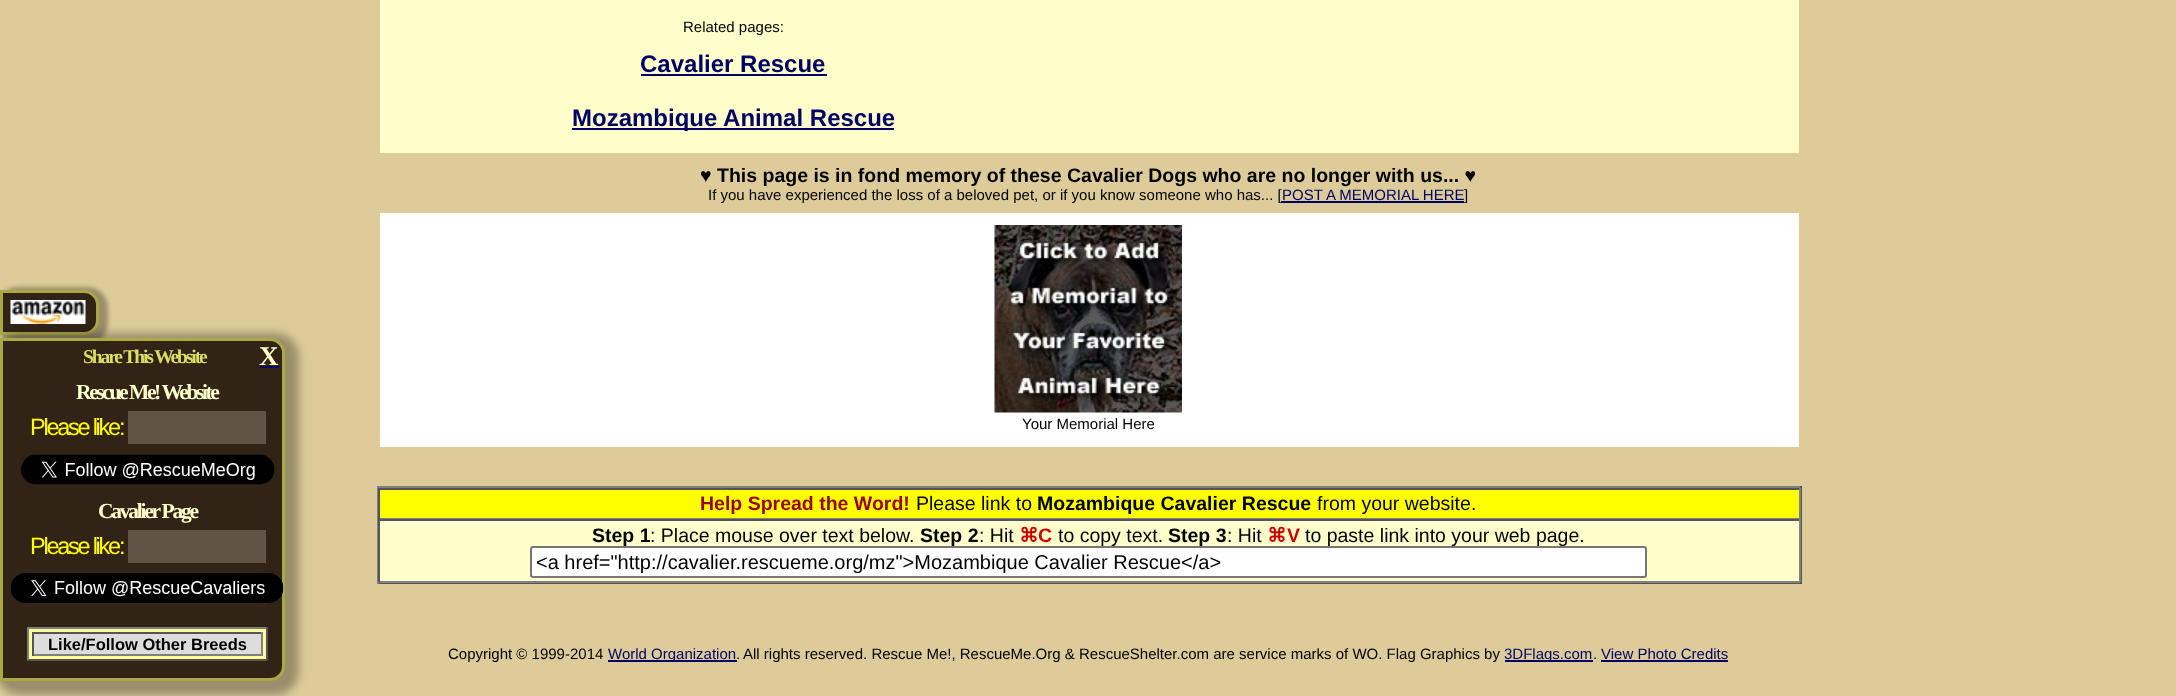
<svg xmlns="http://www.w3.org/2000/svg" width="2176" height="696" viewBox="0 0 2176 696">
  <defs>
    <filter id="blur1" x="-50%" y="-200%" width="200%" height="500%"><feGaussianBlur stdDeviation="2"/></filter>
    <clipPath id="clip1"><rect x="536" y="551" width="1105" height="22"/></clipPath>
    <filter id="blur2" x="-50%" y="-200%" width="200%" height="500%"><feGaussianBlur stdDeviation="4"/></filter>
  </defs>
  <rect width="100%" height="100%" fill="#ddcc99"/>
  <rect x="-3" y="287" width="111" height="57" rx="21" fill="#000000" fill-opacity="0.3" filter="url(#blur1)"/>
  <path d="M1.5 291.5H84C91.5 291.5 97.5 297.5 97.5 305V320C97.5 327.5 91.5 333.5 84 333.5H1.5Z" fill="#322317" stroke="#aaaa44" stroke-width="3"/>
  <image x="10" y="300" width="76" height="24" href="img1.png"/>
  <rect x="380" y="0" width="1419" height="153" fill="#ffffcc"/>
  <text x="683" y="32" font-family="Liberation Sans" font-size="15" fill="#000000">Related pages:</text>
  <text x="640" y="72" font-family="Liberation Sans" font-size="24" font-weight="bold" fill="#000066">Cavalier Rescue</text>
  <rect x="641" y="74" width="186" height="2" fill="#000066"/>
  <rect x="572" y="128" width="322" height="2" fill="#000066"/>
  <text x="572" y="126" font-family="Liberation Sans" font-size="24" font-weight="bold" fill="#000066">Mozambique Animal Rescue</text>
  <text x="700" y="182" font-family="Liberation Sans" font-size="19.5" font-weight="bold" fill="#000000">♥ This page is in fond memory of these Cavalier Dogs who are no longer with us... ♥</text>
  <text x="708" y="200" font-family="Liberation Sans" font-size="15" fill="#000000">If you have experienced the loss of a beloved pet, or if you know someone who has... [</text>
  <rect x="1281" y="201" width="183" height="2" fill="#000066"/>
  <text x="1282" y="200" font-family="Liberation Sans" font-size="15" fill="#000066">POST A MEMORIAL HERE</text>
  <text x="1464" y="200" font-family="Liberation Sans" font-size="15" fill="#000000">]</text>
  <rect x="380" y="213" width="1419" height="234" fill="#ffffff"/>
  <image x="994" y="225" width="188" height="188" href="img2.png"/>
  <text x="1022" y="429" font-family="Liberation Sans" font-size="15" fill="#000000">Your Memorial Here</text>
  <rect x="377" y="486" width="1425" height="2" fill="#808080"/>
  <rect x="1800" y="486" width="2" height="98" fill="#555555"/>
  <rect x="377" y="582" width="1425" height="2" fill="#555555"/>
  <rect x="377" y="486" width="2" height="98" fill="#808080"/>
  <rect x="380" y="490" width="1419" height="28" fill="#ffff00"/>
  <rect x="378" y="488" width="1422" height="2" fill="#555555"/>
  <rect x="1799" y="488" width="2" height="31" fill="#808080"/>
  <rect x="378" y="518" width="1422" height="1" fill="#808080"/>
  <rect x="378" y="488" width="2" height="31" fill="#555555"/>
  <text x="700" y="510" font-family="Liberation Sans" font-size="19.5" font-weight="bold" fill="#990000">Help Spread the Word!</text>
  <text x="916" y="510" font-family="Liberation Sans" font-size="19.5" fill="#000000">Please link to</text>
  <text x="1037" y="510" font-family="Liberation Sans" font-size="19.5" font-weight="bold" fill="#000000">Mozambique Cavalier Rescue</text>
  <text x="1317" y="510" font-family="Liberation Sans" font-size="19.5" fill="#000000">from your website.</text>
  <rect x="380" y="521" width="1419" height="60" fill="#ffffcc"/>
  <rect x="378" y="519" width="1422" height="2" fill="#555555"/>
  <rect x="1799" y="519" width="2" height="63" fill="#808080"/>
  <rect x="378" y="581" width="1422" height="2" fill="#808080"/>
  <rect x="378" y="519" width="2" height="63" fill="#555555"/>
  <text x="592" y="542" font-family="Liberation Sans" font-size="19.5" font-weight="bold" fill="#000000">Step 1</text>
  <text x="650" y="542" font-family="Liberation Sans" font-size="19.5" fill="#000000">: Place mouse over text below.</text>
  <text x="920" y="542" font-family="Liberation Sans" font-size="19.5" font-weight="bold" fill="#000000">Step 2</text>
  <text x="979" y="542" font-family="Liberation Sans" font-size="19.5" fill="#000000">: Hit</text>
  <text x="1019" y="542" font-family="DejaVu Sans" font-size="19.5" font-weight="bold" fill="#cc0000">⌘</text>
  <text x="1038" y="542" font-family="Liberation Sans" font-size="19.5" font-weight="bold" fill="#cc0000">C</text>
  <text x="1058" y="542" font-family="Liberation Sans" font-size="19.5" fill="#000000">to copy text.</text>
  <text x="1168" y="542" font-family="Liberation Sans" font-size="19.5" font-weight="bold" fill="#000000">Step 3</text>
  <text x="1227" y="542" font-family="Liberation Sans" font-size="19.5" fill="#000000">: Hit</text>
  <text x="1267" y="542" font-family="DejaVu Sans" font-size="19.5" font-weight="bold" fill="#cc0000">⌘</text>
  <text x="1287" y="542" font-family="Liberation Sans" font-size="19.5" font-weight="bold" fill="#cc0000">V</text>
  <text x="1305" y="542" font-family="Liberation Sans" font-size="19.5" fill="#000000">to paste link into your web page.</text>
  <rect x="531" y="547" width="1115" height="30" rx="2" fill="#ffffff" stroke="#767676" stroke-width="2"/>
  <g clip-path="url(#clip1)">
    <text x="536" y="569" font-family="Liberation Sans" font-size="20" fill="#000000">&lt;a href="http://cavalier.rescueme.org/mz"&gt;Mozambique Cavalier Rescue&lt;/a&gt;</text>
  </g>
  <text x="448" y="659" font-family="Liberation Sans" font-size="15" fill="#000000">Copyright © 1999-2014</text>
  <rect x="608" y="660" width="129" height="2" fill="#000066"/>
  <text x="608" y="659" font-family="Liberation Sans" font-size="15" fill="#000066">World Organization</text>
  <text x="736" y="659" font-family="Liberation Sans" font-size="15" fill="#000000">.</text>
  <text x="743" y="659" font-family="Liberation Sans" font-size="15" fill="#000000">All rights reserved. Rescue Me!, RescueMe.Org &amp; RescueShelter.com are service marks of WO. Flag Graphics by</text>
  <rect x="1505" y="660" width="88" height="2" fill="#000066"/>
  <text x="1504" y="659" font-family="Liberation Sans" font-size="15" fill="#000066">3DFlags.com</text>
  <text x="1593" y="659" font-family="Liberation Sans" font-size="15" fill="#000000">.</text>
  <rect x="1601" y="660" width="127" height="2" fill="#000066"/>
  <text x="1601" y="659" font-family="Liberation Sans" font-size="15" fill="#000066">View Photo Credits</text>
  <rect x="-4" y="333" width="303" height="362" rx="24" fill="#000000" fill-opacity="0.3" filter="url(#blur2)"/>
  <path d="M1.5 339.5H270C277.5 339.5 283.5 345.5 283.5 353V666C283.5 673.5 277.5 679.5 270 679.5H1.5Z" fill="#322317" stroke="#aaaa44" stroke-width="3"/>
  <text x="83" y="363" font-family="Liberation Serif" font-size="19.5" font-weight="bold" letter-spacing="-2.1" fill="#dddd66">Share This Website</text>
  <text x="259" y="365" font-family="Liberation Serif" font-size="27" font-weight="bold" fill="#ffffcc">X</text>
  <rect x="260" y="366" width="19" height="2" fill="#000066"/>
  <text x="76" y="399" font-family="Liberation Serif" font-size="21.5" font-weight="bold" letter-spacing="-2.4" fill="#ffffcc">Rescue Me! Website</text>
  <text x="30" y="435" font-family="Liberation Sans" font-size="23.5" letter-spacing="-2.25" fill="#ffff00">Please like:</text>
  <rect x="128" y="411" width="138" height="33" fill="#625347"/>
  <image x="21" y="454" width="254" height="31" href="img3.png"/>
  <text x="98" y="518" font-family="Liberation Serif" font-size="21.5" font-weight="bold" letter-spacing="-2.25" fill="#ffffcc">Cavalier Page</text>
  <text x="30" y="554" font-family="Liberation Sans" font-size="23.5" letter-spacing="-2.25" fill="#ffff00">Please like:</text>
  <rect x="128" y="530" width="138" height="33" fill="#625347"/>
  <image x="10" y="573" width="274" height="30" href="img4.png"/>
  <rect x="29" y="629" width="237" height="30" fill="#ffff99"/>
  <rect x="27" y="627" width="240" height="2" fill="#808080"/>
  <rect x="266" y="627" width="2" height="33" fill="#555555"/>
  <rect x="27" y="659" width="240" height="2" fill="#555555"/>
  <rect x="27" y="627" width="2" height="33" fill="#808080"/>
  <rect x="34" y="634" width="227" height="20" fill="#dddddd"/>
  <rect x="32" y="632" width="231" height="2" fill="#555555"/>
  <rect x="261" y="632" width="2" height="24" fill="#808080"/>
  <rect x="32" y="654" width="231" height="2" fill="#808080"/>
  <rect x="32" y="632" width="2" height="24" fill="#555555"/>
  <text x="48" y="650" font-family="Liberation Sans" font-size="16.5" font-weight="bold" fill="#000000">Like/Follow Other Breeds</text>
</svg>
